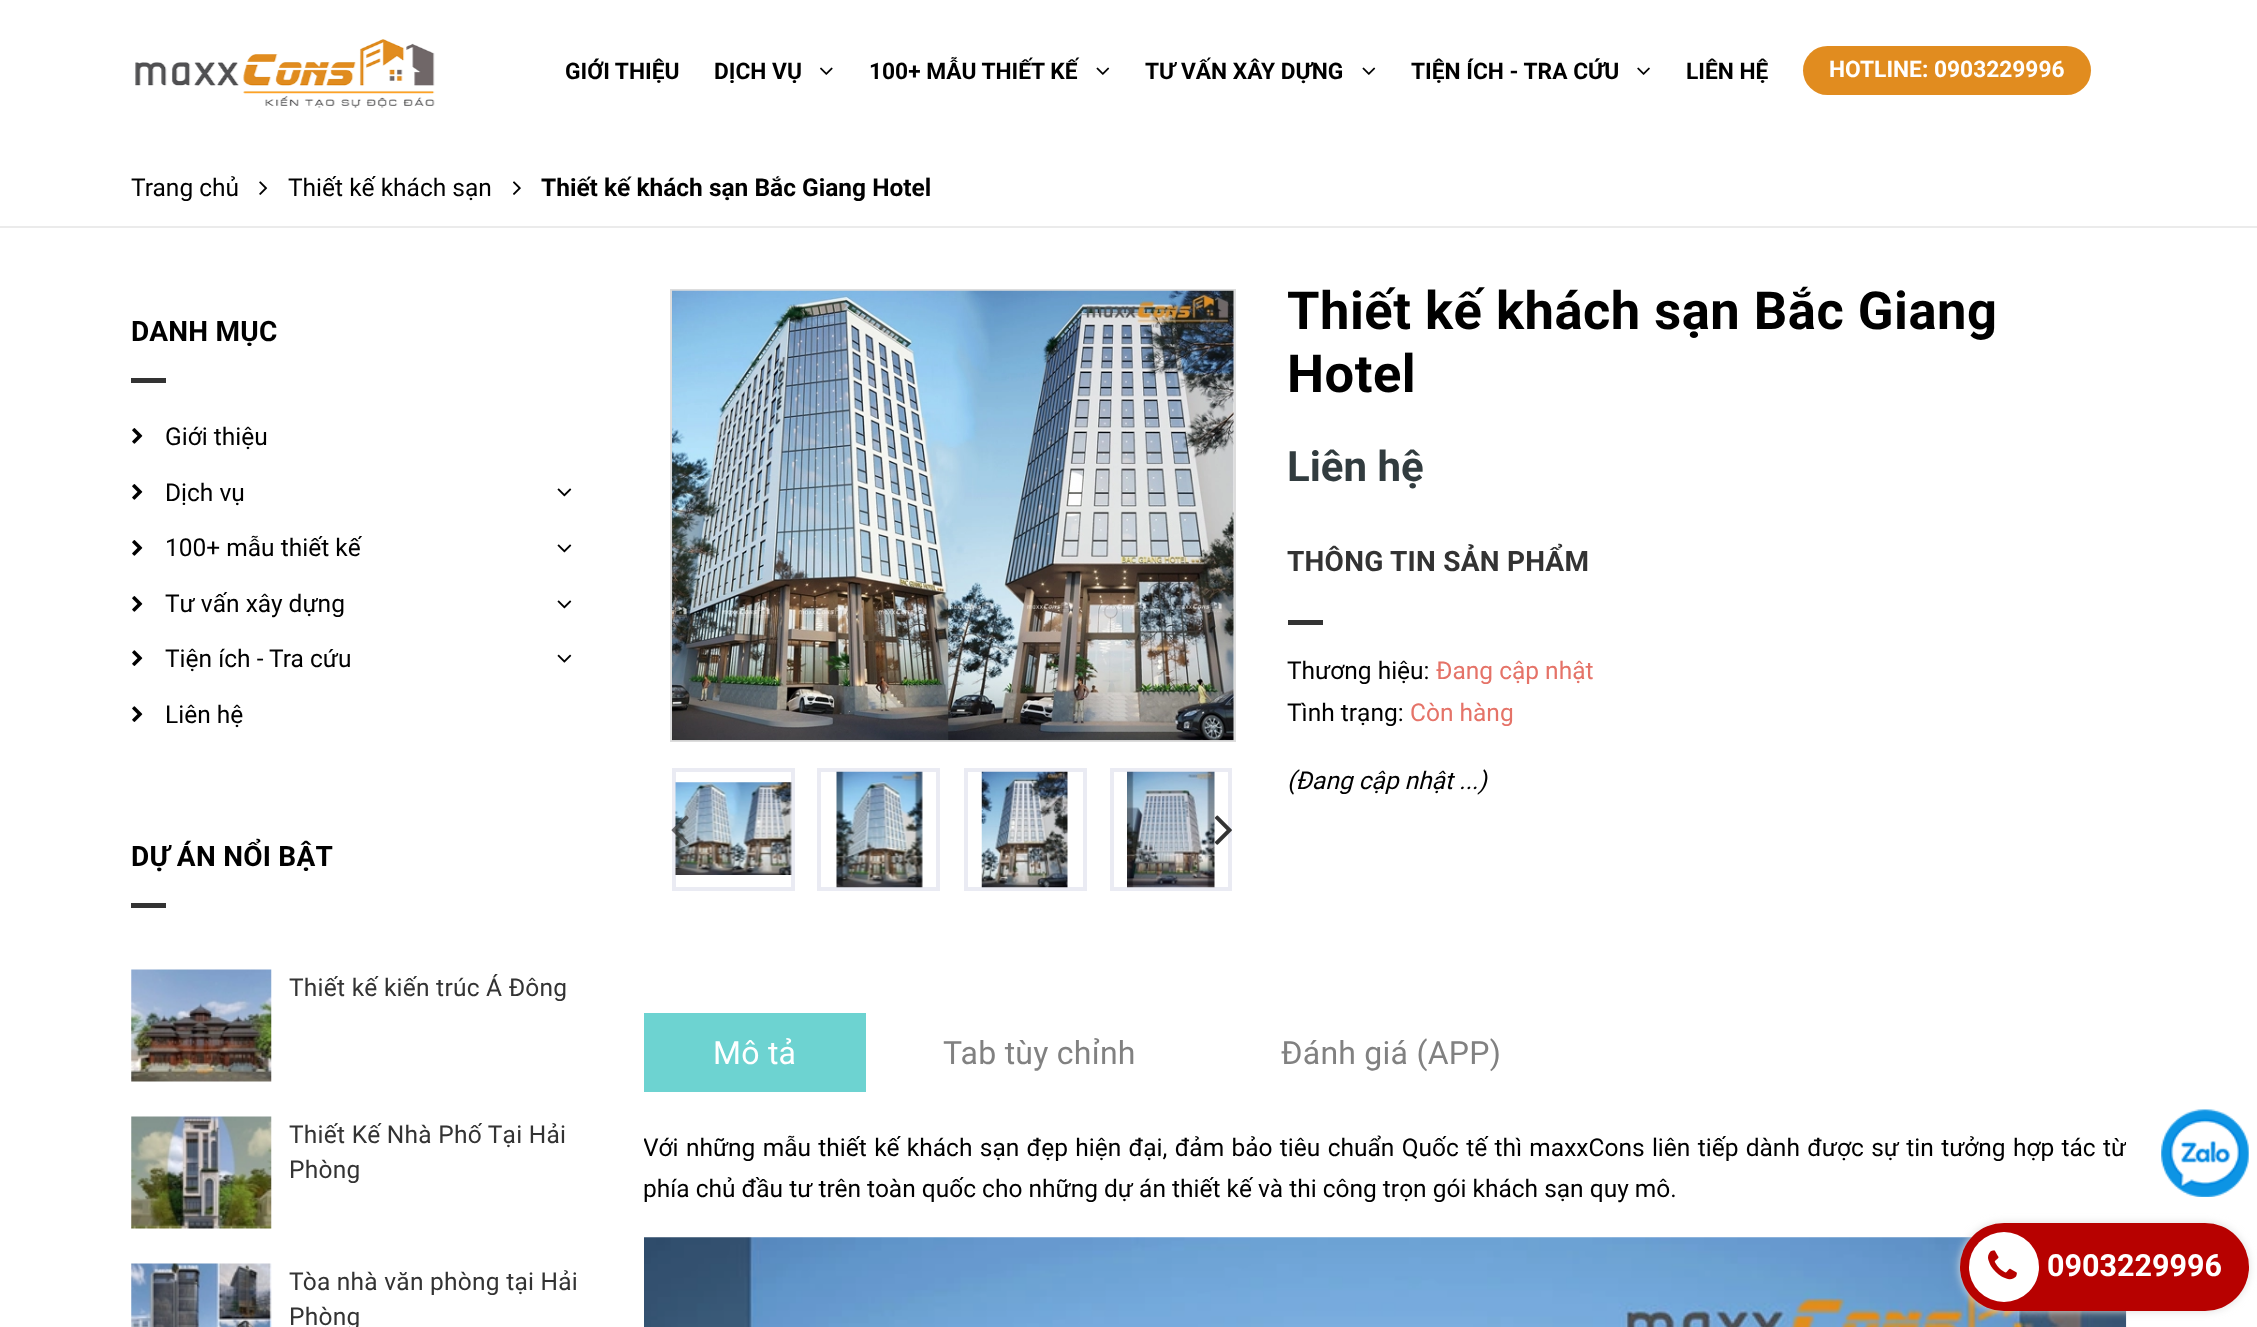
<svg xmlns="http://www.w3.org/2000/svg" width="2257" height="1327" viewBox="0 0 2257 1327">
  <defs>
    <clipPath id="clip1"><rect x="644" y="1092" width="1482" height="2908"/></clipPath>
    <filter id="blur1" x="-50%" y="-200%" width="200%" height="500%"><feGaussianBlur stdDeviation="4.5"/></filter>
  </defs>
  <rect width="100%" height="100%" fill="#ffffff"/>
  <image x="135" y="39" width="300" height="69" href="img1.png"/>
  <text x="565" y="79" font-family="Roboto" font-size="22.75" font-weight="bold" fill="#000000">GIỚI THIỆU</text>
  <text x="714" y="79" font-family="Roboto" font-size="22.75" font-weight="bold" fill="#000000">DỊCH VỤ</text>
  <image x="820" y="67" width="13" height="8" href="img2.png"/>
  <text x="869" y="79" font-family="Roboto" font-size="22.75" font-weight="bold" fill="#000000">100+ MẪU THIẾT KẾ</text>
  <image x="1096" y="67" width="14" height="8" href="img3.png"/>
  <text x="1145" y="79" font-family="Roboto" font-size="22.75" font-weight="bold" fill="#000000">TƯ VẤN XÂY DỰNG</text>
  <image x="1362" y="67" width="14" height="8" href="img3.png"/>
  <text x="1411" y="79" font-family="Roboto" font-size="22.75" font-weight="bold" fill="#000000">TIỆN ÍCH - TRA CỨU</text>
  <image x="1637" y="67" width="13" height="8" href="img4.png"/>
  <text x="1686" y="79" font-family="Roboto" font-size="22.75" font-weight="bold" fill="#000000">LIÊN HỆ</text>
  <rect x="1803" y="46" width="288" height="49" rx="24.5" fill="#e18c1f"/>
  <text x="1829" y="77" font-family="Roboto" font-size="22.75" font-weight="bold" fill="#ffffff">HOTLINE: 0903229996</text>
  <rect x="0" y="226" width="2257" height="2" fill="#ebebeb"/>
  <text x="131" y="196" font-family="Roboto" font-size="24.5" fill="#000000">Trang chủ</text>
  <image x="259" y="181" width="9" height="14" href="img5.png"/>
  <text x="288" y="196" font-family="Roboto" font-size="24.5" fill="#000000">Thiết kế khách sạn</text>
  <image x="513" y="181" width="8" height="14" href="img6.png"/>
  <text x="541" y="196" font-family="Roboto" font-size="24.5" font-weight="bold" fill="#000000">Thiết kế khách sạn Bắc Giang Hotel</text>
  <text x="131" y="341" font-family="Roboto" font-size="28" font-weight="bold" letter-spacing="0.25" fill="#000000">DANH MỤC</text>
  <rect x="131" y="378" width="35" height="5" fill="#333333"/>
  <image x="132" y="428" width="11" height="16" href="img7.png"/>
  <text x="165" y="445" font-family="Roboto" font-size="24.5" fill="#000000">Giới thiệu</text>
  <image x="132" y="484" width="11" height="16" href="img8.png"/>
  <text x="165" y="501" font-family="Roboto" font-size="24.5" fill="#000000">Dịch vụ</text>
  <image x="557" y="488" width="15" height="9" href="img9.png"/>
  <image x="132" y="540" width="11" height="16" href="img7.png"/>
  <text x="165" y="556" font-family="Roboto" font-size="24.5" fill="#000000">100+ mẫu thiết kế</text>
  <image x="557" y="544" width="15" height="9" href="img9.png"/>
  <image x="132" y="596" width="11" height="16" href="img7.png"/>
  <text x="165" y="612" font-family="Roboto" font-size="24.5" fill="#000000">Tư vấn xây dựng</text>
  <image x="557" y="600" width="15" height="9" href="img9.png"/>
  <image x="132" y="650" width="11" height="16" href="img10.png"/>
  <text x="165" y="667" font-family="Roboto" font-size="24.5" fill="#000000">Tiện ích - Tra cứu</text>
  <image x="557" y="654" width="15" height="9" href="img11.png"/>
  <image x="132" y="706" width="11" height="16" href="img10.png"/>
  <text x="165" y="723" font-family="Roboto" font-size="24.5" fill="#000000">Liên hệ</text>
  <text x="131" y="866" font-family="Roboto" font-size="28" font-weight="bold" letter-spacing="0.25" fill="#000000">DỰ ÁN NỔI BẬT</text>
  <rect x="131" y="903" width="35" height="5" fill="#333333"/>
  <image x="131" y="969" width="141" height="113" href="img12.png"/>
  <text x="289" y="996" font-family="Roboto" font-size="24.5" letter-spacing="0.25" fill="#333333">Thiết kế kiến trúc Á Đông</text>
  <image x="131" y="1116" width="141" height="113" href="img13.png"/>
  <text x="289" y="1143" font-family="Roboto" font-size="24.5" letter-spacing="0.25" fill="#333333">Thiết Kế Nhà Phố Tại Hải</text>
  <text x="289" y="1178" font-family="Roboto" font-size="24.5" letter-spacing="0.25" fill="#333333">Phòng</text>
  <image x="131" y="1263" width="141" height="64" href="img14.png"/>
  <text x="289" y="1290" font-family="Roboto" font-size="24.5" letter-spacing="0.25" fill="#333333">Tòa nhà văn phòng tại Hải</text>
  <text x="289" y="1325" font-family="Roboto" font-size="24.5" letter-spacing="0.25" fill="#333333">Phòng</text>
  <rect x="671" y="290" width="564" height="451" fill="none" stroke="#dddddd" stroke-width="2"/>
  <image x="672" y="290" width="562" height="451" href="img15.png"/>
  <rect x="674" y="770" width="119" height="119" fill="none" stroke="#eaebf3" stroke-width="4"/>
  <image x="675" y="782" width="117" height="93" href="img16.png"/>
  <rect x="819" y="770" width="119" height="119" fill="none" stroke="#eaebf3" stroke-width="4"/>
  <image x="836" y="771" width="87" height="117" href="img17.png"/>
  <rect x="966" y="770" width="119" height="119" fill="none" stroke="#eaebf3" stroke-width="4"/>
  <image x="981" y="771" width="87" height="117" href="img18.png"/>
  <rect x="1112" y="770" width="118" height="119" fill="none" stroke="#eaebf3" stroke-width="4"/>
  <image x="1127" y="771" width="88" height="117" href="img19.png"/>
  <image x="671" y="815" width="18" height="30" href="img20.png"/>
  <image x="1214" y="815" width="18" height="30" href="img21.png"/>
  <text x="1287" y="329" font-family="Roboto" font-size="52.5" font-weight="bold" letter-spacing="0.5" fill="#000000">Thiết kế khách sạn Bắc Giang</text>
  <text x="1287" y="392" font-family="Roboto" font-size="52.5" font-weight="bold" letter-spacing="0.5" fill="#000000">Hotel</text>
  <text x="1287" y="481" font-family="Roboto" font-size="42" font-weight="bold" fill="#323c3f">Liên hệ</text>
  <text x="1287" y="571" font-family="Roboto" font-size="28" font-weight="bold" letter-spacing="0.25" fill="#333333">THÔNG TIN SẢN PHẨM</text>
  <rect x="1288" y="620" width="35" height="5" fill="#333333"/>
  <text x="1287" y="679" font-family="Roboto" font-size="24.5" fill="#000000">Thương hiệu:</text>
  <text x="1436" y="679" font-family="Roboto" font-size="24.5" fill="#e57368">Đang cập nhật</text>
  <text x="1287" y="721" font-family="Roboto" font-size="24.5" fill="#000000">Tình trạng:</text>
  <text x="1410" y="721" font-family="Roboto" font-size="24.5" fill="#e57368">Còn hàng</text>
  <text x="1287" y="789" font-family="Roboto" font-size="24.5" font-style="italic" fill="#000000">(Đang cập nhật ...)</text>
  <rect x="644" y="1013" width="222" height="79" fill="#6dd3d1"/>
  <text x="713" y="1064" font-family="Roboto" font-size="32" letter-spacing="0.25" fill="#ffffff">Mô tả</text>
  <text x="943" y="1064" font-family="Roboto" font-size="32" letter-spacing="0.25" fill="#818181">Tab tùy chỉnh</text>
  <text x="1281" y="1064" font-family="Roboto" font-size="32" letter-spacing="0.25" fill="#818181">Đánh giá (APP)</text>
  <g clip-path="url(#clip1)">
    <text x="643" y="1156" word-spacing="1.25" font-family="Roboto" font-size="24.5" fill="#000000">Với những mẫu thiết kế khách sạn đẹp hiện đại, đảm bảo tiêu chuẩn Quốc tế thì maxxCons liên tiếp dành được sự tin tưởng hợp tác từ</text>
  </g>
  <text x="643" y="1197" font-family="Roboto" font-size="24.5" fill="#000000">phía chủ đầu tư trên toàn quốc cho những dự án thiết kế và thi công trọn gói khách sạn quy mô.</text>
  <image x="644" y="1237" width="1483" height="90" href="img22.png"/>
  <image x="2161" y="1109" width="88" height="88" href="img23.png"/>
  <rect x="1960" y="1223" width="289" height="88" rx="44" fill="#dddddd" filter="url(#blur1)"/>
  <rect x="1960" y="1223" width="289" height="88" rx="44" fill="#b70100"/>
  <circle cx="2004" cy="1267" r="35" fill="#ffffff"/>
  <image x="1988" y="1250" width="29" height="30" href="img24.png"/>
  <text x="2047" y="1276" font-family="Roboto" font-size="30.5" font-weight="bold" fill="#ffffff">0903229996</text>
</svg>
